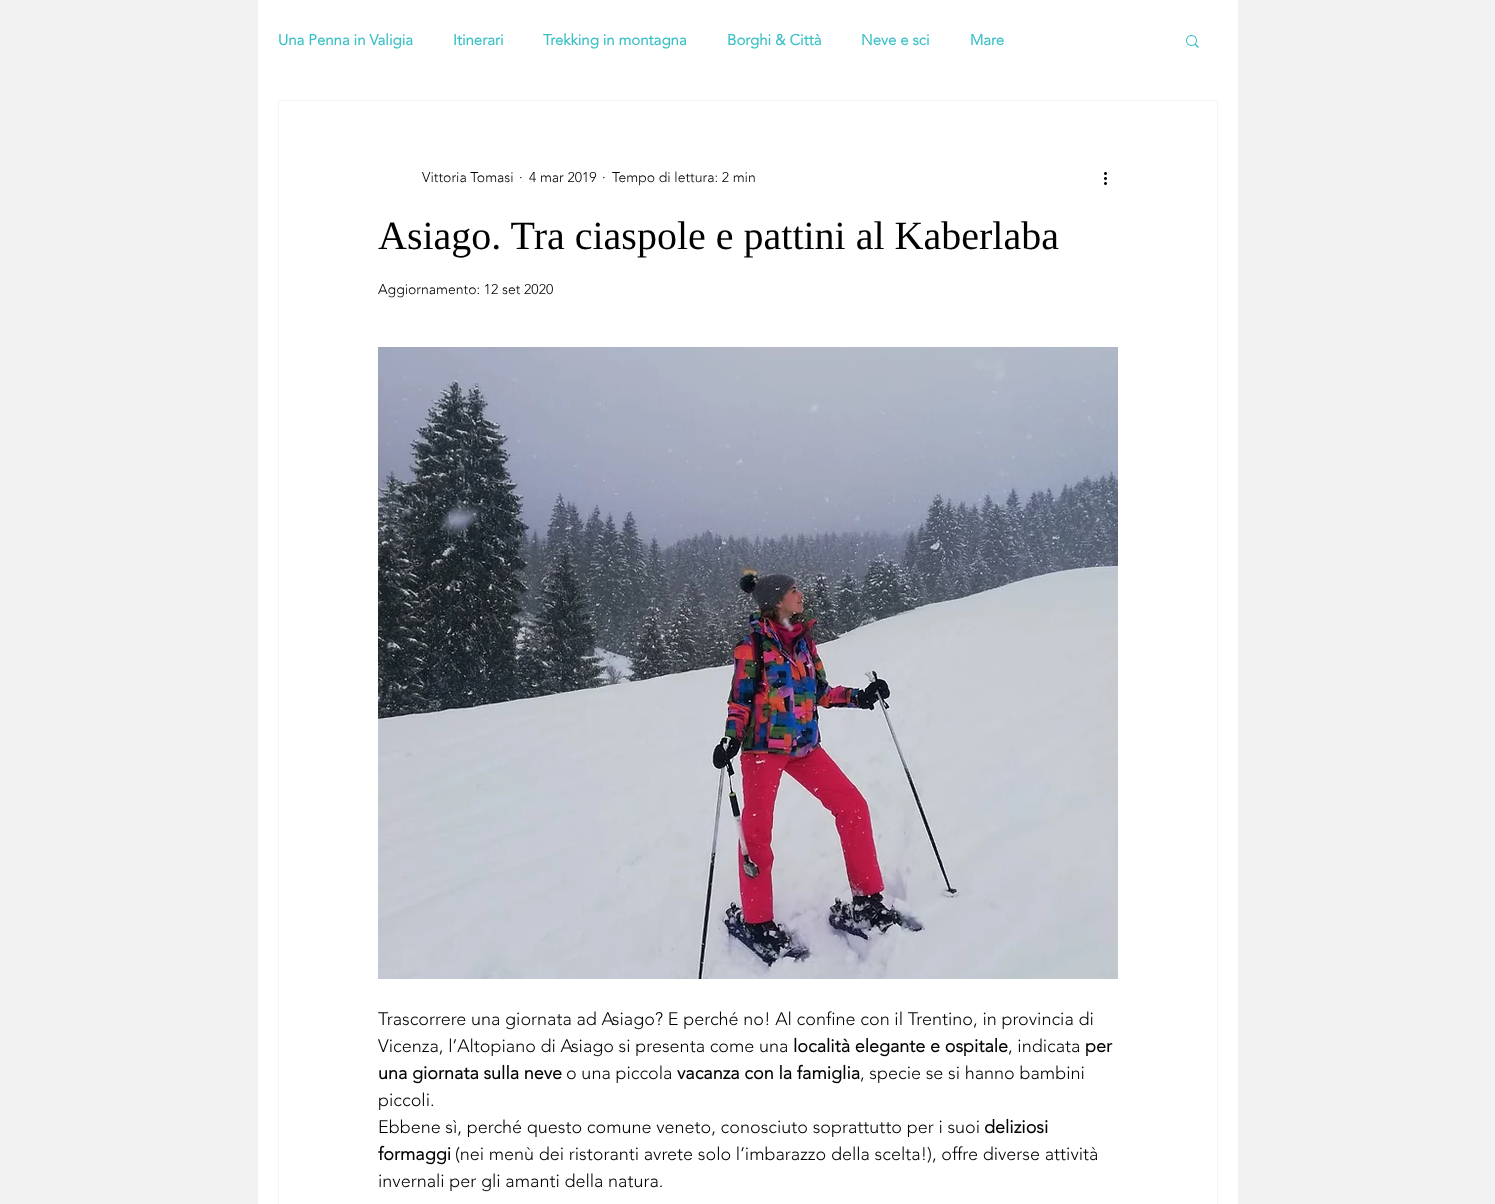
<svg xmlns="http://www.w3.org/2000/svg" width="1495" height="1204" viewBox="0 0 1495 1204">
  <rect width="100%" height="100%" fill="#f2f2f2"/>
  <rect x="258" y="0" width="980" height="1204" fill="#ffffff"/>
  <text x="278" y="45" font-family="'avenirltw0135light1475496'" font-size="15" font-weight="bold" fill="#3ac0c7">Una Penna in Valigia</text>
  <text x="453" y="45" font-family="'avenirltw0135light1475496'" font-size="15" font-weight="bold" fill="#3ac0c7">Itinerari</text>
  <text x="543" y="45" font-family="'avenirltw0135light1475496'" font-size="15" font-weight="bold" fill="#3ac0c7">Trekking in montagna</text>
  <text x="727" y="45" font-family="'avenirltw0135light1475496'" font-size="15" font-weight="bold" fill="#3ac0c7">Borghi &amp; Città</text>
  <text x="861" y="45" font-family="'avenirltw0135light1475496'" font-size="15" font-weight="bold" fill="#3ac0c7">Neve e sci</text>
  <text x="970" y="45" font-family="'avenirltw0135light1475496'" font-size="15" font-weight="bold" fill="#3ac0c7">Mare</text>
  <image x="1186" y="35" width="13" height="13" href="img1.png"/>
  <rect x="278.5" y="100.5" width="939" height="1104" fill="none" stroke="#f5f5f5"/>
  <text x="422" y="182" font-family="'avenirltw0135light1475496'" font-size="14" font-weight="300" fill="#000000">Vittoria Tomasi</text>
  <text x="519" y="182" font-family="'avenirltw0135light1475496'" font-size="14" font-weight="300" fill="#000000">·</text>
  <text x="529" y="182" font-family="'avenirltw0135light1475496'" font-size="14" font-weight="300" fill="#000000">4 mar 2019</text>
  <text x="602" y="182" font-family="'avenirltw0135light1475496'" font-size="14" font-weight="300" fill="#000000">·</text>
  <text x="612" y="182" font-family="'avenirltw0135light1475496'" font-size="14" font-weight="300" fill="#000000">Tempo di lettura: 2 min</text>
  <image x="1104" y="172" width="3" height="13" href="img2.png"/>
  <text x="378" y="249" font-family="Liberation Serif" font-size="40" fill="#000000">Asiago. Tra ciaspole e pattini al Kaberlaba</text>
  <text x="378" y="294" font-family="'avenirltw0135light1475496'" font-size="14" font-weight="300" fill="#000000">Aggiornamento: 12 set 2020</text>
  <image x="378" y="347" width="740" height="632" href="img3.png"/>
  <text x="378" y="1025" font-family="'avenirltw0135light1475496'" font-size="18" font-weight="300" fill="#000000">Trascorrere una giornata ad Asiago? E perché no! Al confine con il Trentino, in provincia di</text>
  <text x="378" y="1052" font-family="'avenirltw0135light1475496'" font-size="18" font-weight="300" fill="#000000">Vicenza, l’Altopiano di Asiago si presenta come una</text>
  <text x="793" y="1052" font-family="'avenirltw0135light1475496'" font-size="18" font-weight="bold" fill="#000000">località elegante e ospitale</text>
  <text x="1008" y="1052" font-family="'avenirltw0135light1475496'" font-size="18" font-weight="300" fill="#000000">, indicata</text>
  <text x="1085" y="1052" font-family="'avenirltw0135light1475496'" font-size="18" font-weight="bold" fill="#000000">per</text>
  <text x="378" y="1079" font-family="'avenirltw0135light1475496'" font-size="18" font-weight="bold" fill="#000000">una giornata sulla neve</text>
  <text x="566" y="1079" font-family="'avenirltw0135light1475496'" font-size="18" font-weight="300" fill="#000000">o una piccola</text>
  <text x="677" y="1079" font-family="'avenirltw0135light1475496'" font-size="18" font-weight="bold" fill="#000000">vacanza con la famiglia</text>
  <text x="860" y="1079" font-family="'avenirltw0135light1475496'" font-size="18" font-weight="300" fill="#000000">, specie se si hanno bambini</text>
  <text x="378" y="1106" font-family="'avenirltw0135light1475496'" font-size="18" font-weight="300" fill="#000000">piccoli.</text>
  <text x="378" y="1133" font-family="'avenirltw0135light1475496'" font-size="18" font-weight="300" fill="#000000">Ebbene sì, perché questo comune veneto, conosciuto soprattutto per i suoi</text>
  <text x="984" y="1133" font-family="'avenirltw0135light1475496'" font-size="18" font-weight="bold" fill="#000000">deliziosi</text>
  <text x="378" y="1160" font-family="'avenirltw0135light1475496'" font-size="18" font-weight="bold" fill="#000000">formaggi</text>
  <text x="455" y="1160" font-family="'avenirltw0135light1475496'" font-size="18" font-weight="300" fill="#000000">(nei menù dei ristoranti avrete solo l’imbarazzo della scelta!), offre diverse attività</text>
  <text x="378" y="1187" font-family="'avenirltw0135light1475496'" font-size="18" font-weight="300" fill="#000000">invernali per gli amanti della natura.</text>
</svg>
